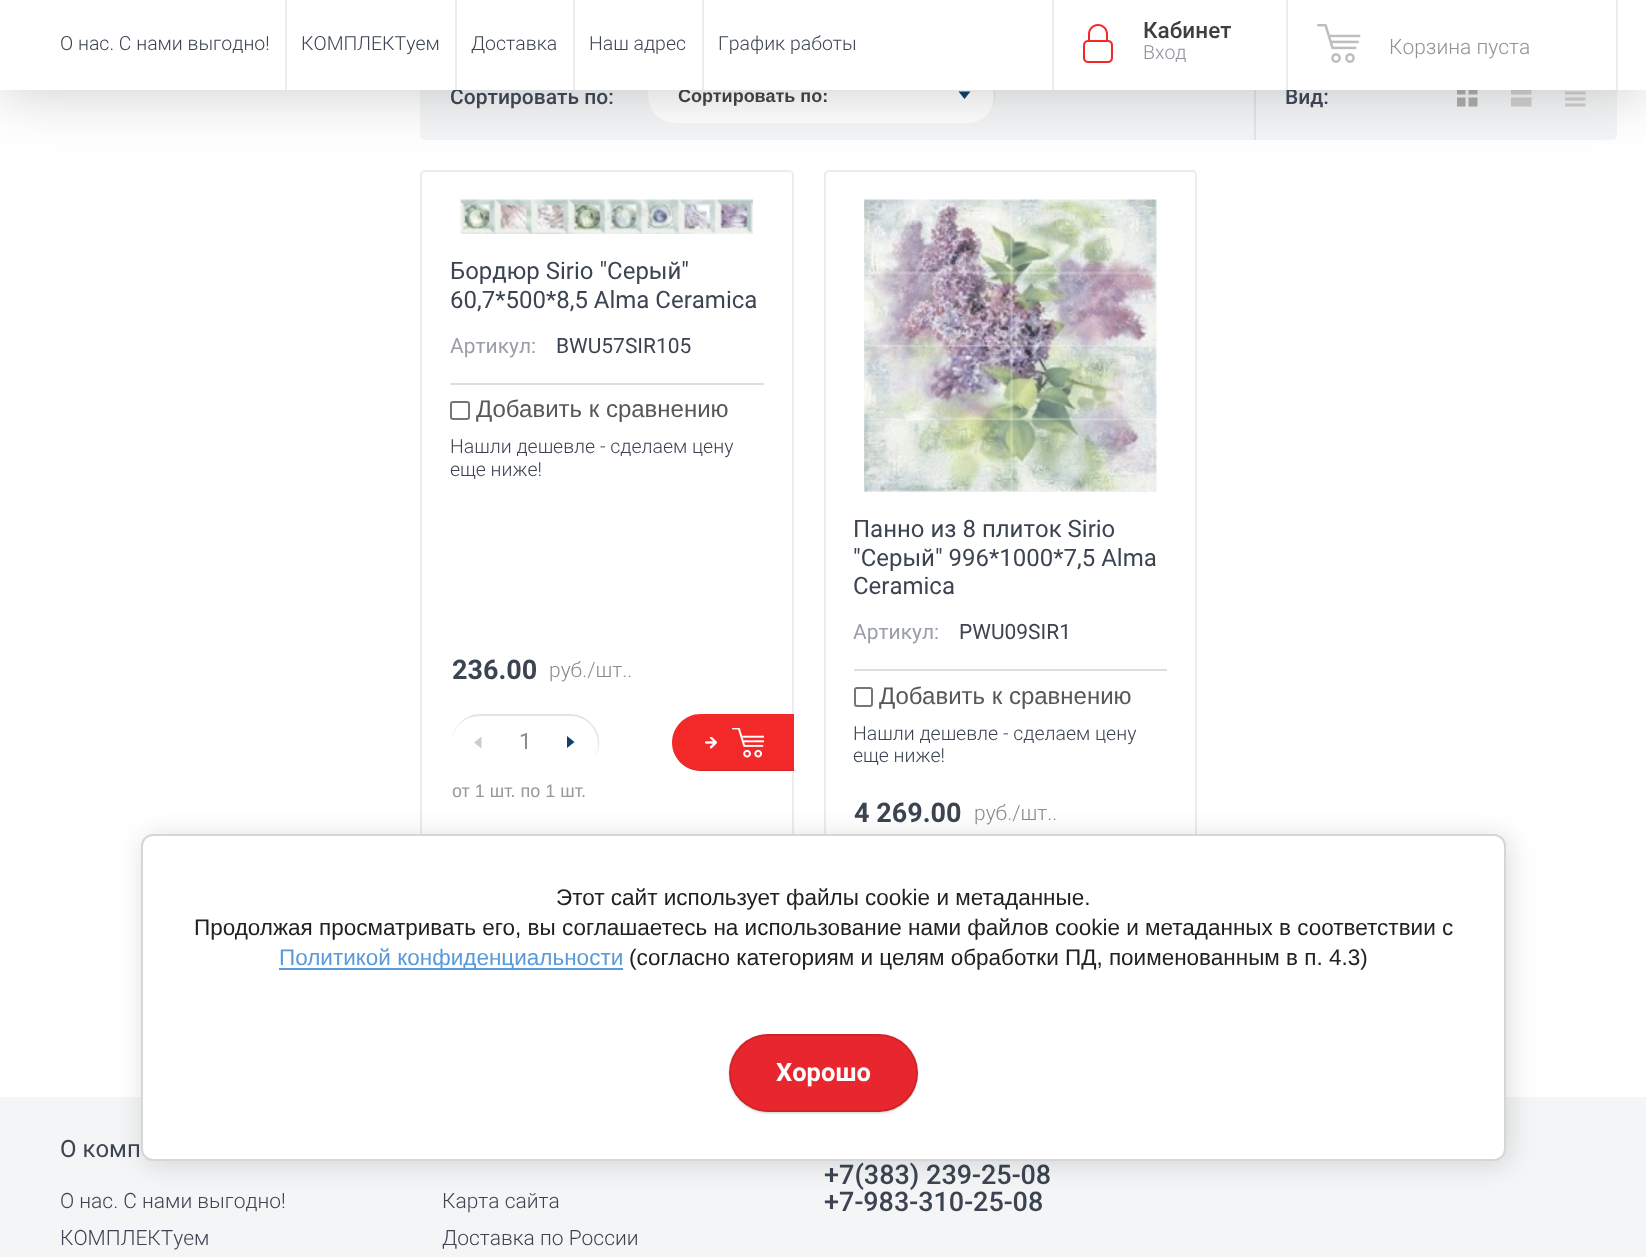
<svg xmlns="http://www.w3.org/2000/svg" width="1646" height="1257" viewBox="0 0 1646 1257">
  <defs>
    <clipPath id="clip1"><rect x="420" y="170" width="374" height="807" rx="5"/></clipPath>
    <linearGradient id="g1" gradientUnits="userSpaceOnUse" x1="607" y1="975" x2="607" y2="171"><stop offset="0" stop-color="#f4f5f6"/><stop offset="0.1" stop-color="#ffffff"/></linearGradient>
    <clipPath id="clip2"><rect x="824" y="170" width="373" height="807" rx="5"/></clipPath>
    <linearGradient id="g2" gradientUnits="userSpaceOnUse" x1="1010" y1="975" x2="1010" y2="171"><stop offset="0" stop-color="#f4f5f6"/><stop offset="0.1" stop-color="#ffffff"/></linearGradient>
    <filter id="blur1" x="-50%" y="-200%" width="200%" height="500%"><feGaussianBlur stdDeviation="30"/></filter>
    <linearGradient id="g3" gradientUnits="userSpaceOnUse" x1="733" y1="771" x2="733" y2="714"><stop offset="0" stop-color="#f32929"/><stop offset="1" stop-color="#f32a2a"/></linearGradient>
    <filter id="blur2" x="-50%" y="-200%" width="200%" height="500%"><feGaussianBlur stdDeviation="13.5"/></filter>
    <filter id="blur3" x="-50%" y="-200%" width="200%" height="500%"><feGaussianBlur stdDeviation="1"/></filter>
  </defs>
  <rect width="100%" height="100%" fill="#ffffff"/>
  <rect x="420" y="56" width="1197" height="84" rx="5" fill="#f4f5f6"/>
  <rect x="648" y="68" width="347" height="55" rx="27.5" fill="#ffffff"/>
  <path d="M676 69H967C982 69 994 81 994 97C994 103 992 108 990 112C993 107 995 102 995 96C995 80 983 68 968 68H676C660 68 648 80 648 96C648 81 660 69 676 69Z" fill="#e3e4e5"/>
  <path d="M958.5 91.5H970.5L964.5 99Z" fill="#11406c"/>
  <rect x="1254" y="90" width="2" height="50" fill="#e3e4e5"/>
  <image x="1457" y="90" width="21" height="17" href="img3.png"/>
  <image x="1511" y="90" width="21" height="17" href="img4.png"/>
  <image x="1565" y="91" width="21" height="16" href="img5.png"/>
  <g clip-path="url(#clip1)">
    <rect x="420" y="171" width="374" height="663" fill="url(#g1)"/>
  </g>
  <rect x="421" y="171" width="372" height="805" rx="4" fill="none" stroke="#ececec" stroke-width="2"/>
  <g clip-path="url(#clip2)">
    <rect x="824" y="171" width="373" height="663" fill="url(#g2)"/>
  </g>
  <rect x="825" y="171" width="371" height="805" rx="4" fill="none" stroke="#ececec" stroke-width="2"/>
  <rect x="0" y="2" width="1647" height="90" fill="#000000" fill-opacity="0.2" filter="url(#blur1)"/>
  <text x="450" y="104" font-family="Roboto" font-size="21" font-weight="500" fill="#3c4452">Сортировать по:</text>
  <text x="678" y="102" font-family="Liberation Sans" font-size="18" font-weight="bold" fill="#3f3f3f">Сортировать по:</text>
  <text x="1285" y="104" font-family="Roboto" font-size="21" font-weight="500" fill="#3c4452">Вид:</text>
  <rect x="0" y="0" width="1646" height="90" fill="#ffffff"/>
  <text x="60" y="50" font-family="Roboto" font-size="19.5" font-weight="300" fill="#3c4452">О нас. С нами выгодно!</text>
  <rect x="285" y="0" width="2" height="90" fill="#ececec"/>
  <text x="301" y="50" font-family="Roboto" font-size="19.5" font-weight="300" fill="#3c4452">КОМПЛЕКТуем</text>
  <rect x="455" y="0" width="2" height="90" fill="#ececec"/>
  <text x="471" y="50" font-family="Roboto" font-size="19.5" font-weight="300" fill="#3c4452">Доставка</text>
  <rect x="573" y="0" width="2" height="90" fill="#ececec"/>
  <text x="589" y="50" font-family="Roboto" font-size="19.5" font-weight="300" fill="#3c4452">Наш адрес</text>
  <rect x="702" y="0" width="2" height="90" fill="#ececec"/>
  <text x="718" y="50" font-family="Roboto" font-size="19.5" font-weight="300" fill="#3c4452">График работы</text>
  <rect x="1052" y="0" width="2" height="90" fill="#ececec"/>
  <rect x="1286" y="0" width="2" height="90" fill="#ececec"/>
  <image x="1083" y="24" width="30" height="39" href="img1.png"/>
  <text x="1143" y="38" font-family="Roboto" font-size="22.5" font-weight="500" fill="#3f3f3f">Кабинет</text>
  <text x="1143" y="59" font-family="Roboto" font-size="19.5" font-weight="300" fill="#8e9298">Вход</text>
  <rect x="1616" y="0" width="2" height="90" fill="#ececec"/>
  <image x="1317" y="24" width="44" height="39" href="img2.png"/>
  <text x="1389" y="54" font-family="Roboto" font-size="21" font-weight="300" fill="#8e9298">Корзина пуста</text>
  <image x="460" y="199" width="293" height="35" href="img6.png"/>
  <text x="450" y="279" font-family="Roboto" font-size="24" fill="#3c4452">Бордюр Sirio "Серый"</text>
  <text x="450" y="308" font-family="Roboto" font-size="24" fill="#3c4452">60,7*500*8,5 Alma Ceramica</text>
  <text x="450" y="353" font-family="Roboto" font-size="21" fill="#9b9fa7">Артикул:</text>
  <text x="556" y="353" font-family="Roboto" font-size="21" fill="#3c4452">BWU57SIR105</text>
  <rect x="450" y="383" width="314" height="2" fill="#dedede"/>
  <rect x="451" y="402" width="18" height="17" rx="2" fill="none" stroke="#767676" stroke-width="2"/>
  <text x="476" y="417" font-family="Liberation Sans" font-size="24" fill="#585858">Добавить к сравнению</text>
  <text x="450" y="453" font-family="Roboto" font-size="19.5" font-weight="300" fill="#3c4452">Нашли дешевле - сделаем цену</text>
  <text x="450" y="476" font-family="Roboto" font-size="19.5" font-weight="300" fill="#3c4452">еще ниже!</text>
  <text x="452" y="679" font-family="Roboto" font-size="27" font-weight="bold" fill="#3c4452">236.00</text>
  <text x="549" y="677" font-family="Roboto" font-size="21" font-weight="300" fill="#8c8b8b">руб./шт..</text>
  <path d="M480 716H570C586 716 598 728 598 744C598 749 597 753 595 757C598 753 599 748 599 742C599 727 586 714 570 714H480C465 714 452 727 452 742V743C452 728 464 716 480 716Z" fill="#e3e4e5"/>
  <path d="M481.5 736.5V748.5L474 742.5Z" fill="#c9ccd1"/>
  <text x="519" y="749" font-family="Roboto" font-size="22.5" fill="#8c8b8b">1</text>
  <path d="M567 748V736L574.5 742Z" fill="#11406c"/>
  <text x="452" y="797" font-family="Liberation Sans" font-size="18" fill="#999999">от 1 шт. по 1 шт.</text>
  <path d="M700.5 714H794V771H700.5C685 771 672 758 672 742.5C672 727 685 714 700.5 714Z" fill="url(#g3)"/>
  <path d="M672 742C672 758 685 771 700 771H794V770H700C685 770 672 757 672 742Z" fill="#000000" fill-opacity="0.14"/>
  <image x="705" y="737" width="12" height="12" href="img7.png"/>
  <image x="732" y="728" width="32" height="30" href="img8.png"/>
  <image x="864" y="199" width="293" height="293" href="img9.png"/>
  <text x="853" y="537" font-family="Roboto" font-size="24" fill="#3c4452">Панно из 8 плиток Sirio</text>
  <text x="853" y="566" font-family="Roboto" font-size="24" fill="#3c4452">"Серый" 996*1000*7,5 Alma</text>
  <text x="853" y="594" font-family="Roboto" font-size="24" fill="#3c4452">Ceramica</text>
  <text x="853" y="639" font-family="Roboto" font-size="21" fill="#9b9fa7">Артикул:</text>
  <text x="959" y="639" font-family="Roboto" font-size="21" fill="#3c4452">PWU09SIR1</text>
  <rect x="854" y="669" width="313" height="2" fill="#dedede"/>
  <rect x="855" y="688" width="17" height="18" rx="2" fill="none" stroke="#767676" stroke-width="2"/>
  <text x="879" y="704" font-family="Liberation Sans" font-size="24" fill="#585858">Добавить к сравнению</text>
  <text x="853" y="740" font-family="Roboto" font-size="19.5" font-weight="300" fill="#3c4452">Нашли дешевле - сделаем цену</text>
  <text x="853" y="762" font-family="Roboto" font-size="19.5" font-weight="300" fill="#3c4452">еще ниже!</text>
  <text x="854" y="822" font-family="Roboto" font-size="27" font-weight="bold" fill="#3c4452">4 269.00</text>
  <text x="974" y="820" font-family="Roboto" font-size="21" font-weight="300" fill="#8c8b8b">руб./шт..</text>
  <rect x="0" y="1097" width="1646" height="160" fill="#f4f5f6"/>
  <text x="60" y="1157" font-family="Roboto" font-size="24" fill="#3c4452">О комп</text>
  <text x="60" y="1208" font-family="Roboto" font-size="21" font-weight="300" fill="#3c4452">О нас. С нами выгодно!</text>
  <text x="60" y="1245" font-family="Roboto" font-size="21" font-weight="300" fill="#3c4452">КОМПЛЕКТуем</text>
  <text x="824" y="1184" font-family="Roboto" font-size="27" font-weight="500" fill="#3c4452">+7(383) 239-25-08</text>
  <text x="824" y="1211" font-family="Roboto" font-size="27" font-weight="500" fill="#3c4452">+7-983-310-25-08</text>
  <text x="442" y="1208" font-family="Roboto" font-size="21" font-weight="300" fill="#3c4452">Карта сайта</text>
  <text x="442" y="1245" font-family="Roboto" font-size="21" font-weight="300" fill="#3c4452">Доставка по России</text>
  <rect x="144" y="837" width="1365" height="327" rx="12" fill="#000000" fill-opacity="0.14" filter="url(#blur2)"/>
  <rect x="142" y="835" width="1363" height="325" rx="11" fill="#ffffff" stroke="#d6d6d6" stroke-width="2"/>
  <text x="556" y="905" font-family="Liberation Sans" font-size="22.5" fill="#212121">Этот сайт использует файлы cookie и метаданные.</text>
  <text x="194" y="935" font-family="Liberation Sans" font-size="22.5" fill="#212121">Продолжая просматривать его, вы соглашаетесь на использование нами файлов cookie и метаданных в соответствии с</text>
  <rect x="279" y="968" width="344" height="2" fill="#589adb"/>
  <text x="279" y="965" font-family="Liberation Sans" font-size="22.5" fill="#589adb">Политикой конфиденциальности</text>
  <text x="629" y="965" font-family="Liberation Sans" font-size="22.5" fill="#212121">(согласно категориям и целям обработки ПД, поименованным в п. 4.3)</text>
  <rect x="729" y="1035" width="189" height="78" rx="39" fill="#000000" fill-opacity="0.2" filter="url(#blur3)"/>
  <rect x="729" y="1034" width="189" height="78" rx="39" fill="#e7272d"/>
  <rect x="730" y="1035" width="187" height="76" rx="38" fill="none" stroke="#000000" stroke-opacity="0.1" stroke-width="2"/>
  <text x="776" y="1081" font-family="Roboto" font-size="25.5" font-weight="bold" fill="#ffffff">Хорошо</text>
</svg>
